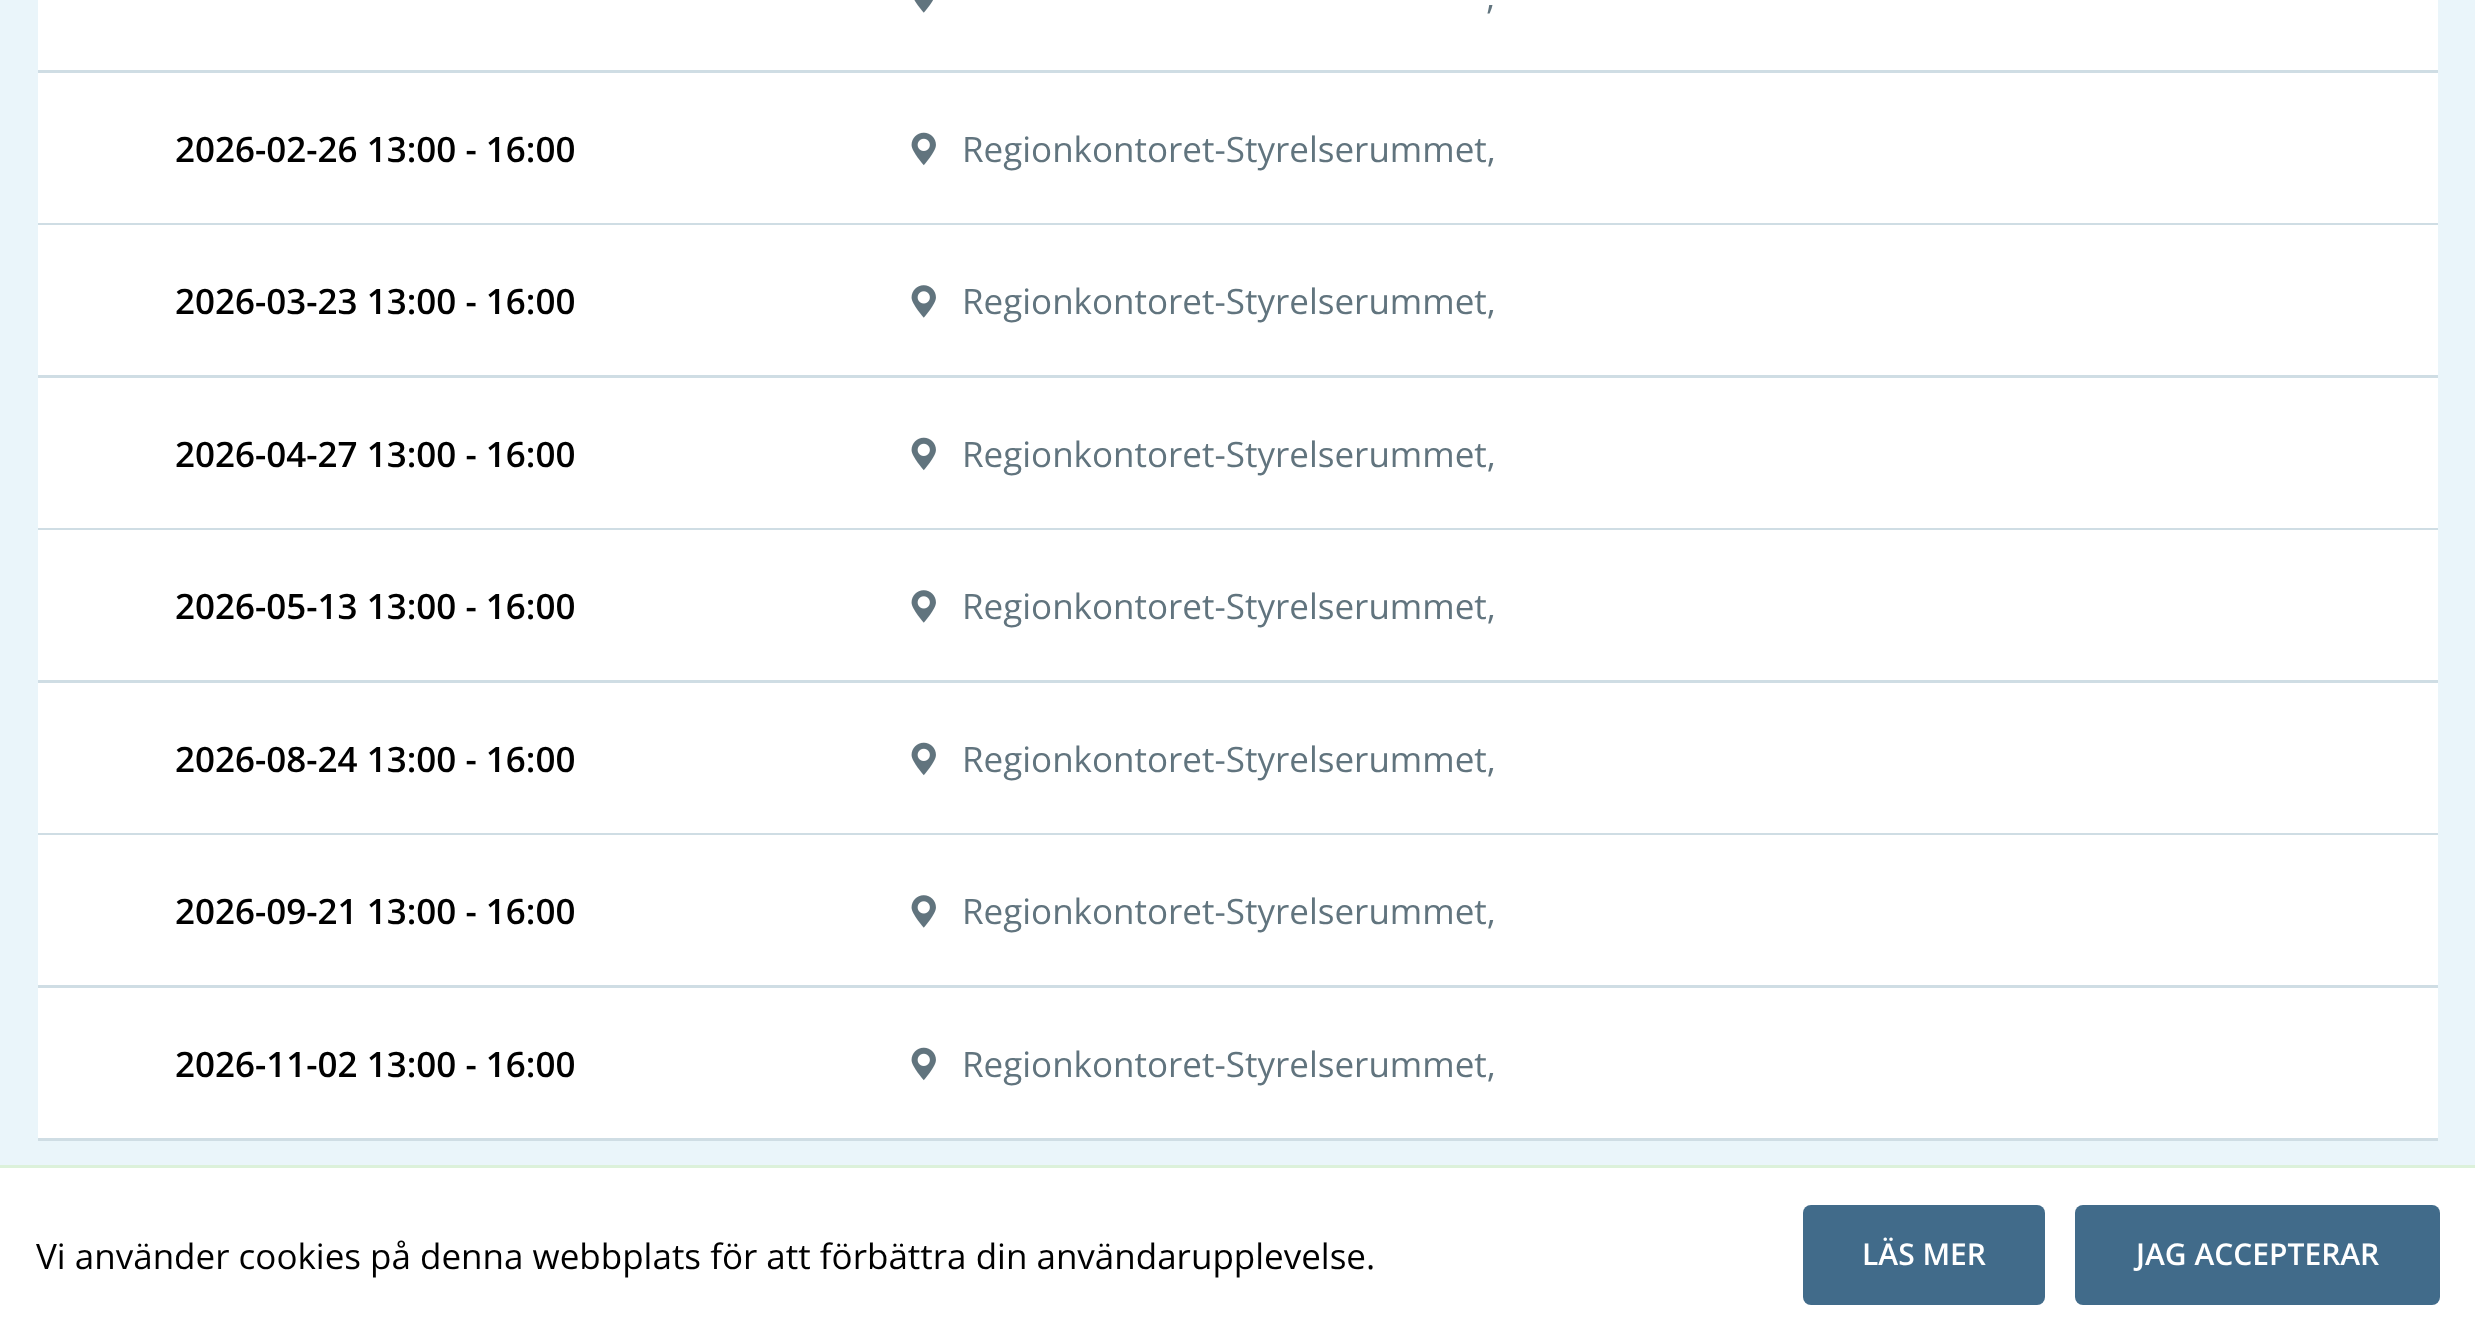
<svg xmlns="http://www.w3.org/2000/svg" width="2475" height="1341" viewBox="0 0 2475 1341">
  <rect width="100%" height="100%" fill="#eaf5fa"/>
  <rect x="38" y="0" width="2400" height="70" fill="#ffffff"/>
  <rect x="38" y="70" width="2400" height="3" fill="#cfdde4"/>
  <image x="914" y="0" width="19" height="13" href="img1.png"/>
  <text x="1486" y="9" font-family="Open Sans" font-size="35" fill="#61747e">,</text>
  <rect x="38" y="73" width="2400" height="150" fill="#ffffff"/>
  <rect x="38" y="223" width="2400" height="2" fill="#cfdde4"/>
  <text x="175" y="162" font-family="Open Sans" font-size="35" font-weight="600" fill="#000000">2026-02-26 13:00 - 16:00</text>
  <image x="911" y="132" width="25" height="34" href="img2.png"/>
  <text x="962" y="162" font-family="Open Sans" font-size="35" fill="#61747e">Regionkontoret-Styrelserummet,</text>
  <rect x="38" y="225" width="2400" height="150" fill="#ffffff"/>
  <rect x="38" y="375" width="2400" height="3" fill="#cfdde4"/>
  <text x="175" y="314" font-family="Open Sans" font-size="35" font-weight="600" fill="#000000">2026-03-23 13:00 - 16:00</text>
  <image x="911" y="285" width="25" height="33" href="img3.png"/>
  <text x="962" y="314" font-family="Open Sans" font-size="35" fill="#61747e">Regionkontoret-Styrelserummet,</text>
  <rect x="38" y="378" width="2400" height="150" fill="#ffffff"/>
  <rect x="38" y="528" width="2400" height="2" fill="#cfdde4"/>
  <text x="175" y="467" font-family="Open Sans" font-size="35" font-weight="600" fill="#000000">2026-04-27 13:00 - 16:00</text>
  <image x="911" y="437" width="25" height="34" href="img2.png"/>
  <text x="962" y="467" font-family="Open Sans" font-size="35" fill="#61747e">Regionkontoret-Styrelserummet,</text>
  <rect x="38" y="530" width="2400" height="150" fill="#ffffff"/>
  <rect x="38" y="680" width="2400" height="3" fill="#cfdde4"/>
  <text x="175" y="619" font-family="Open Sans" font-size="35" font-weight="600" fill="#000000">2026-05-13 13:00 - 16:00</text>
  <image x="911" y="590" width="25" height="33" href="img3.png"/>
  <text x="962" y="619" font-family="Open Sans" font-size="35" fill="#61747e">Regionkontoret-Styrelserummet,</text>
  <rect x="38" y="683" width="2400" height="150" fill="#ffffff"/>
  <rect x="38" y="833" width="2400" height="2" fill="#cfdde4"/>
  <text x="175" y="772" font-family="Open Sans" font-size="35" font-weight="600" fill="#000000">2026-08-24 13:00 - 16:00</text>
  <image x="911" y="742" width="25" height="34" href="img2.png"/>
  <text x="962" y="772" font-family="Open Sans" font-size="35" fill="#61747e">Regionkontoret-Styrelserummet,</text>
  <rect x="38" y="835" width="2400" height="150" fill="#ffffff"/>
  <rect x="38" y="985" width="2400" height="3" fill="#cfdde4"/>
  <text x="175" y="924" font-family="Open Sans" font-size="35" font-weight="600" fill="#000000">2026-09-21 13:00 - 16:00</text>
  <image x="911" y="895" width="25" height="33" href="img3.png"/>
  <text x="962" y="924" font-family="Open Sans" font-size="35" fill="#61747e">Regionkontoret-Styrelserummet,</text>
  <rect x="38" y="988" width="2400" height="150" fill="#ffffff"/>
  <rect x="38" y="1138" width="2400" height="3" fill="#cfdde4"/>
  <text x="175" y="1077" font-family="Open Sans" font-size="35" font-weight="600" fill="#000000">2026-11-02 13:00 - 16:00</text>
  <image x="911" y="1047" width="25" height="34" href="img2.png"/>
  <text x="962" y="1077" font-family="Open Sans" font-size="35" fill="#61747e">Regionkontoret-Styrelserummet,</text>
  <rect x="0" y="1168" width="2475" height="173" fill="#ffffff"/>
  <rect x="0" y="1165" width="2475" height="3" fill="#dcf1da"/>
  <text x="36" y="1269" font-family="Open Sans" font-size="35" fill="#000000">Vi använder cookies på denna webbplats för att förbättra din användarupplevelse.</text>
  <rect x="1803" y="1205" width="242" height="100" rx="8" fill="#416b8a"/>
  <text x="1862" y="1265" font-family="Open Sans" font-size="30" font-weight="600" fill="#ffffff">LÄS MER</text>
  <rect x="2075" y="1205" width="365" height="100" rx="8" fill="#416b8a"/>
  <text x="2136" y="1265" font-family="Open Sans" font-size="30" font-weight="600" fill="#ffffff">JAG ACCEPTERAR</text>
</svg>
